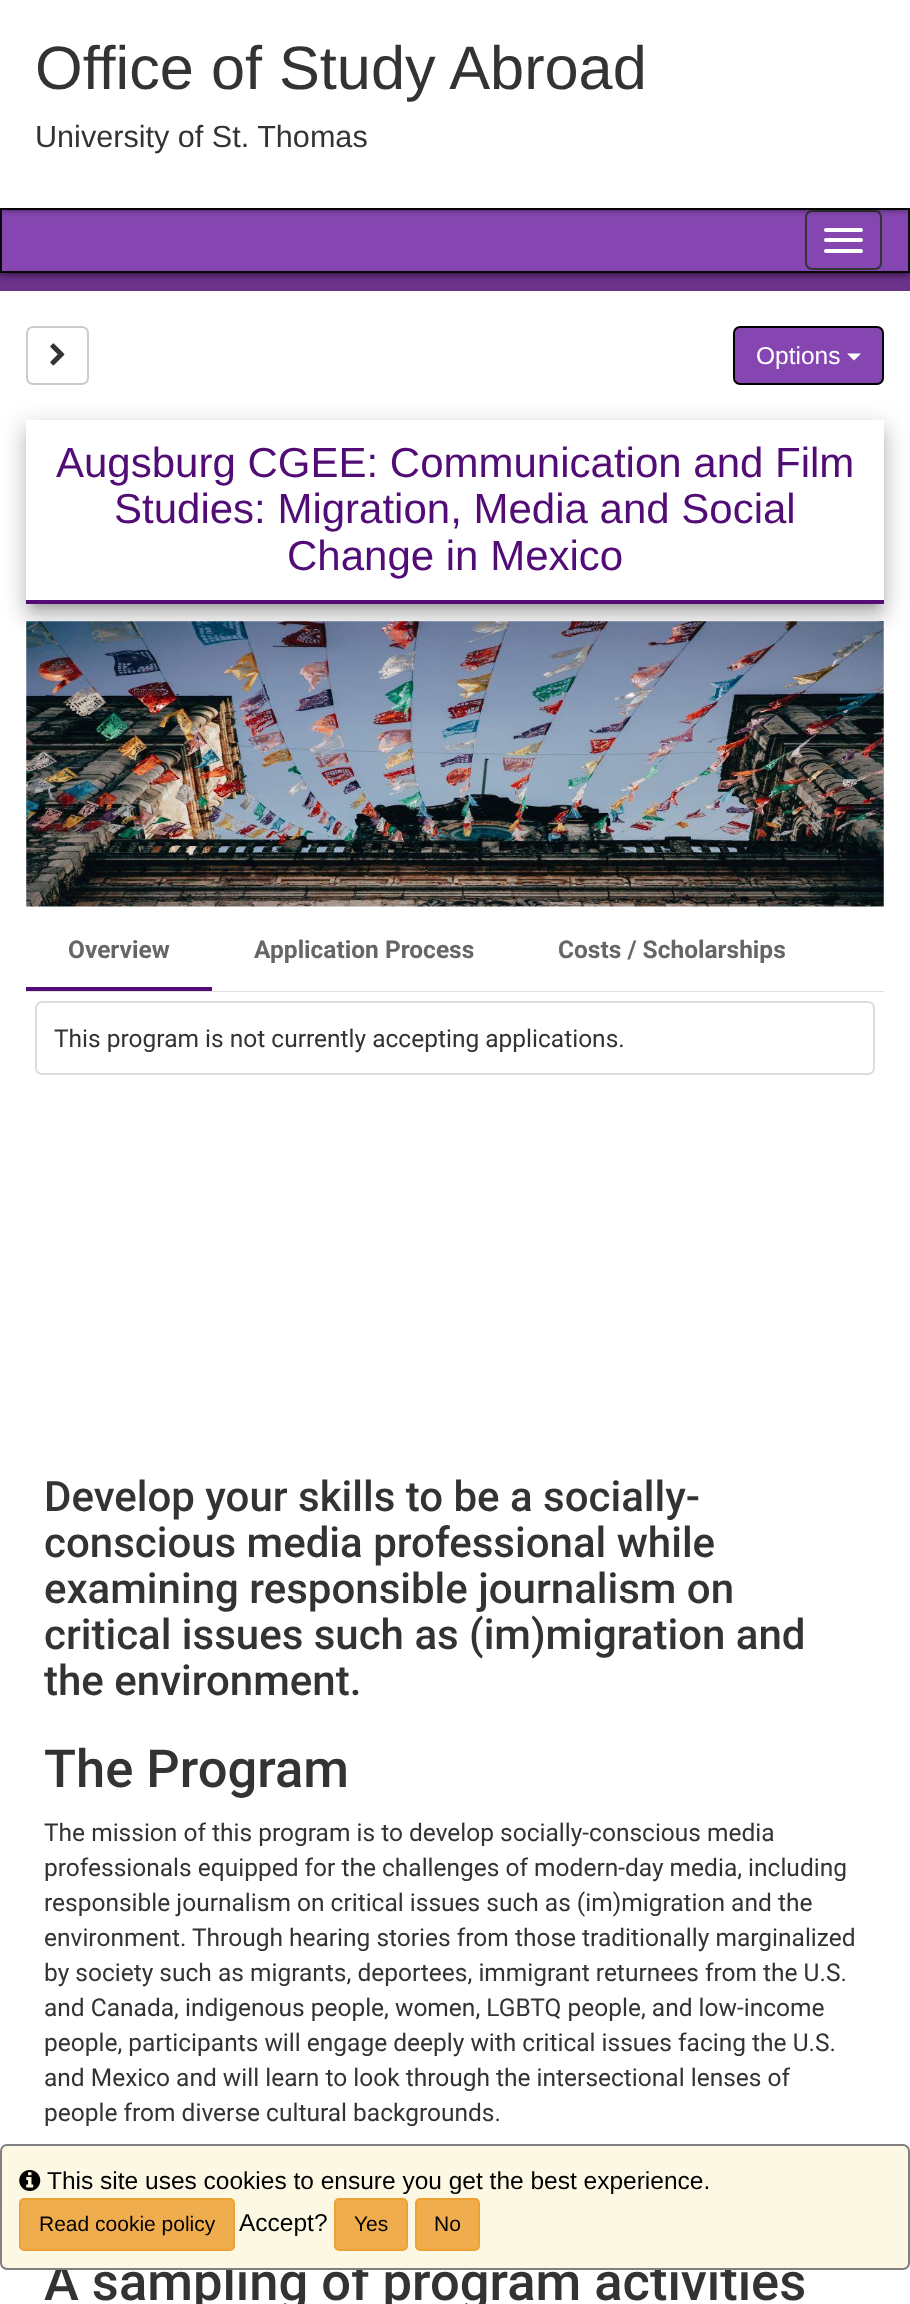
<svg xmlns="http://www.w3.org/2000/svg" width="910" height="2304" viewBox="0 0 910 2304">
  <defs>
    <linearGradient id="g1" gradientUnits="userSpaceOnUse" x1="455" y1="0" x2="455" y2="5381"><stop offset="0.02" stop-color="#500c74"/><stop offset="0.23" stop-color="#ffffff"/></linearGradient>
    <filter id="blur1" x="-50%" y="-200%" width="200%" height="500%"><feGaussianBlur stdDeviation="4.5"/></filter>
    <clipPath id="clip1"><path d="M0 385H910V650H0ZM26 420H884V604H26Z" clip-rule="evenodd"/></clipPath>
    <filter id="blur2" x="-50%" y="-200%" width="200%" height="500%"><feGaussianBlur stdDeviation="12"/></filter>
    <clipPath id="clip2"><path d="M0 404H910V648H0ZM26 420H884V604H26Z" clip-rule="evenodd"/></clipPath>
    <filter id="blur3" x="-50%" y="-200%" width="200%" height="500%"><feGaussianBlur stdDeviation="9"/></filter>
    <clipPath id="clip3"><path d="M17 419H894V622H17ZM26 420H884V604H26Z" clip-rule="evenodd"/></clipPath>
  </defs>
  <rect width="100%" height="100%" fill="#ffffff"/>
  <rect x="0" y="273" width="910" height="18" fill="url(#g1)"/>
  <rect x="0" y="208" width="910" height="65" fill="#000000" fill-opacity="0.8" filter="url(#blur1)"/>
  <rect x="1" y="209" width="908" height="63" fill="none" stroke="#080808" stroke-width="2"/>
  <rect x="2" y="210" width="906" height="61" fill="#8546b1"/>
  <rect x="806" y="211" width="75" height="58" rx="6" fill="none" stroke="#333333" stroke-width="2"/>
  <rect x="0" y="0" width="910" height="208" fill="#000000" fill-opacity="0.8" filter="url(#blur1)"/>
  <rect x="0" y="0" width="910" height="208" fill="#ffffff"/>
  <text x="35" y="89" font-family="Liberation Sans" font-size="61.25" fill="#333333">Office of Study Abroad</text>
  <text x="35" y="147" font-family="Liberation Sans" font-size="30.6" fill="#333333">University of St. Thomas</text>
  <rect x="824" y="228" width="39" height="4" rx="2" fill="#ffffff"/>
  <rect x="824" y="238" width="39" height="4" rx="2" fill="#ffffff"/>
  <rect x="824" y="249" width="39" height="4" rx="2" fill="#ffffff"/>
  <rect x="27" y="327" width="61" height="57" rx="6" fill="none" stroke="#cccccc" stroke-width="2"/>
  <image x="50" y="343" width="15" height="23" href="img1.png"/>
  <rect x="734" y="327" width="149" height="57" rx="6" fill="#8546b1" stroke="#000000" stroke-width="2"/>
  <text x="756" y="364" font-family="Liberation Sans" font-size="24.5" fill="#ffffff">Options</text>
  <path d="M847 353.5H861L854 360.5Z" fill="#ffffff"/>
  <g clip-path="url(#clip1)">
    <rect x="23" y="422" width="864" height="191" fill="#000000" fill-opacity="0.12" filter="url(#blur2)"/>
  </g>
  <g clip-path="url(#clip2)">
    <rect x="25" y="432" width="861" height="188" fill="#000000" fill-opacity="0.14" filter="url(#blur3)"/>
  </g>
  <g clip-path="url(#clip3)">
    <rect x="32" y="434" width="847" height="173" fill="#000000" fill-opacity="0.2" filter="url(#blur1)"/>
  </g>
  <rect x="26" y="600" width="858" height="4" fill="#510c76"/>
  <text x="56" y="477" font-family="Liberation Sans" font-size="42" fill="#510c76">Augsburg CGEE: Communication and Film</text>
  <text x="114" y="523" font-family="Liberation Sans" font-size="42" fill="#510c76">Studies: Migration, Media and Social</text>
  <text x="287" y="570" font-family="Liberation Sans" font-size="42" fill="#510c76">Change in Mexico</text>
  <image x="26" y="621" width="858" height="286" href="img2.png"/>
  <rect x="26" y="991" width="858" height="1" fill="#e0e0e0"/>
  <text x="68" y="958" font-family="Roboto" font-size="24.5" font-weight="bold" fill="#666666">Overview</text>
  <text x="254" y="958" font-family="Roboto" font-size="24.5" font-weight="bold" fill="#666666">Application Process</text>
  <text x="558" y="958" font-family="Roboto" font-size="24.5" font-weight="bold" fill="#666666">Costs / Scholarships</text>
  <rect x="26" y="987" width="186" height="4" fill="#510c76"/>
  <rect x="36" y="1002" width="838" height="72" rx="6" fill="none" stroke="#dddddd" stroke-width="2"/>
  <text x="54" y="1047" font-family="Roboto" font-size="24.5" fill="#333333">This program is not currently accepting applications.</text>
  <text x="44" y="1511" font-family="Roboto" font-size="42" font-weight="500" fill="#333333">Develop your skills to be a socially-</text>
  <text x="44" y="1557" font-family="Roboto" font-size="42" font-weight="500" fill="#333333">conscious media professional while</text>
  <text x="44" y="1603" font-family="Roboto" font-size="42" font-weight="500" fill="#333333">examining responsible journalism on</text>
  <text x="44" y="1649" font-family="Roboto" font-size="42" font-weight="500" fill="#333333">critical issues such as (im)migration and</text>
  <text x="44" y="1695" font-family="Roboto" font-size="42" font-weight="500" fill="#333333">the environment.</text>
  <text x="44" y="1787" font-family="Roboto" font-size="52.5" font-weight="500" fill="#333333">The Program</text>
  <text x="44" y="1841" font-family="Roboto" font-size="24.5" fill="#333333">The mission of this program is to develop socially-conscious media</text>
  <text x="44" y="1876" font-family="Roboto" font-size="24.5" fill="#333333">professionals equipped for the challenges of modern-day media, including</text>
  <text x="44" y="1911" font-family="Roboto" font-size="24.5" fill="#333333">responsible journalism on critical issues such as (im)migration and the</text>
  <text x="44" y="1946" font-family="Roboto" font-size="24.5" fill="#333333">environment. Through hearing stories from those traditionally marginalized</text>
  <text x="44" y="1981" font-family="Roboto" font-size="24.5" fill="#333333">by society such as migrants, deportees, immigrant returnees from the U.S.</text>
  <text x="44" y="2016" font-family="Roboto" font-size="24.5" fill="#333333">and Canada, indigenous people, women, LGBTQ people, and low-income</text>
  <text x="44" y="2051" font-family="Roboto" font-size="24.5" fill="#333333">people, participants will engage deeply with critical issues facing the U.S.</text>
  <text x="44" y="2086" font-family="Roboto" font-size="24.5" fill="#333333">and Mexico and will learn to look through the intersectional lenses of</text>
  <text x="44" y="2121" font-family="Roboto" font-size="24.5" fill="#333333">people from diverse cultural backgrounds.</text>
  <text x="44" y="2300" font-family="Roboto" font-size="52.5" font-weight="500" fill="#333333">A sampling of program activities</text>
  <rect x="1" y="2145" width="908" height="124" rx="6" fill="#fcf8e3" stroke="#808080" stroke-width="2"/>
  <image x="19" y="2170" width="22" height="21" href="img3.png"/>
  <text x="47" y="2189" font-family="Liberation Sans" font-size="24.5" fill="#000000">This site uses cookies to ensure you get the best experience.</text>
  <rect x="20" y="2199" width="214" height="51" rx="4" fill="#f0ad4e" stroke="#eea236" stroke-width="2"/>
  <text x="39" y="2231" font-family="Liberation Sans" font-size="21" fill="#000000">Read cookie policy</text>
  <text x="239" y="2231" font-family="Liberation Sans" font-size="24.5" fill="#000000">Accept?</text>
  <rect x="335" y="2199" width="72" height="51" rx="4" fill="#f0ad4e" stroke="#eea236" stroke-width="2"/>
  <text x="354" y="2231" font-family="Liberation Sans" font-size="21" fill="#000000">Yes</text>
  <rect x="416" y="2199" width="63" height="51" rx="4" fill="#f0ad4e" stroke="#eea236" stroke-width="2"/>
  <text x="434" y="2231" font-family="Liberation Sans" font-size="21" fill="#000000">No</text>
</svg>
